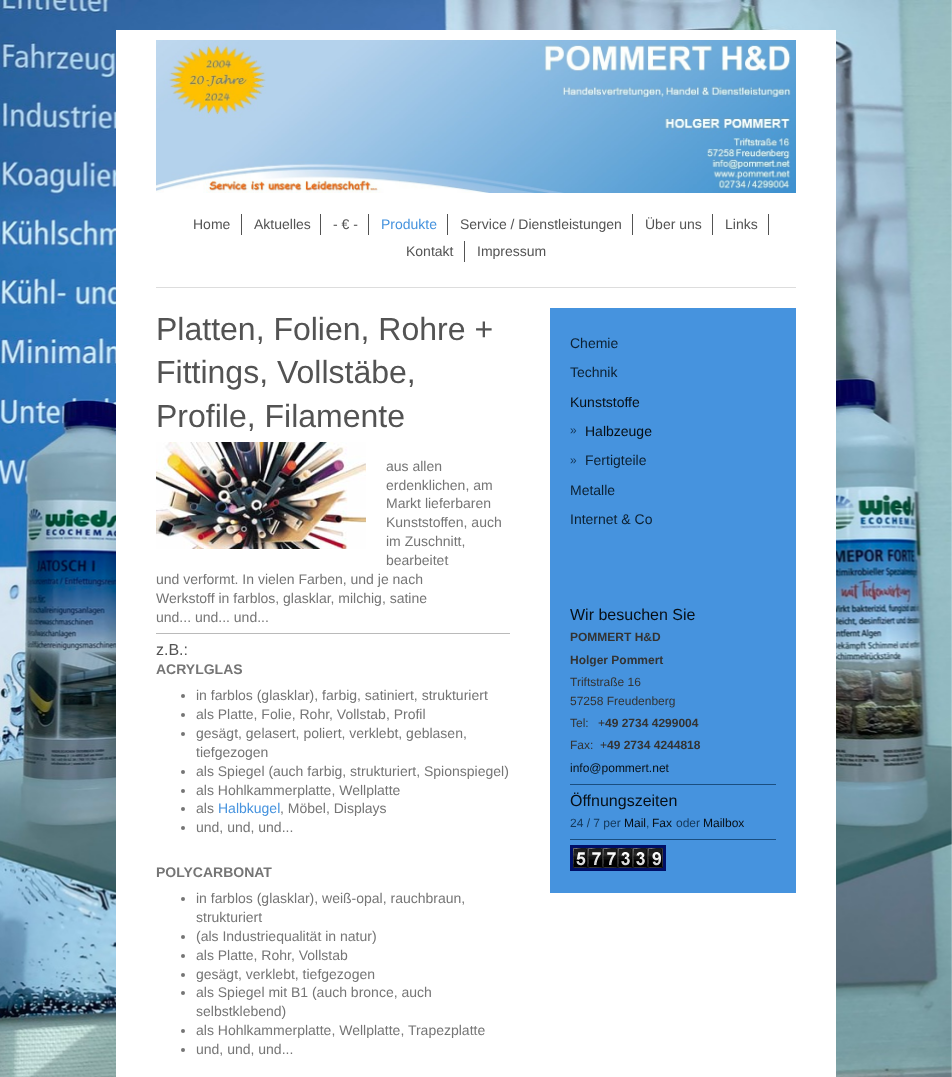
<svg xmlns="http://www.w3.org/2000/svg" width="952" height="1077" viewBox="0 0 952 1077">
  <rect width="100%" height="100%" fill="#ffffff"/>
  <image x="0" y="0" width="952" height="1077" href="img1.png"/>
  <rect x="116" y="30" width="720" height="1047" fill="#ffffff"/>
  <image x="156" y="40" width="640" height="153" href="img2.png"/>
  <rect x="156" y="287" width="640" height="1" fill="#dddddd"/>
  <rect x="241" y="214" width="1" height="21" fill="#535353"/>
  <text x="193" y="229" font-family="Liberation Sans" font-size="14" fill="#535353">Home</text>
  <rect x="320" y="214" width="1" height="21" fill="#535353"/>
  <text x="254" y="229" font-family="Liberation Sans" font-size="14" fill="#535353">Aktuelles</text>
  <rect x="368" y="214" width="1" height="21" fill="#535353"/>
  <text x="333" y="229" font-family="Liberation Sans" font-size="14" fill="#535353">- € -</text>
  <rect x="447" y="214" width="1" height="21" fill="#535353"/>
  <text x="381" y="229" font-family="Liberation Sans" font-size="14" fill="#4693de">Produkte</text>
  <rect x="632" y="214" width="1" height="21" fill="#535353"/>
  <text x="460" y="229" font-family="Liberation Sans" font-size="14" fill="#535353">Service / Dienstleistungen</text>
  <rect x="712" y="214" width="1" height="21" fill="#535353"/>
  <text x="645" y="229" font-family="Liberation Sans" font-size="14" fill="#535353">Über uns</text>
  <rect x="768" y="214" width="1" height="21" fill="#535353"/>
  <text x="725" y="229" font-family="Liberation Sans" font-size="14" fill="#535353">Links</text>
  <rect x="464" y="241" width="1" height="21" fill="#535353"/>
  <text x="406" y="256" font-family="Liberation Sans" font-size="14" fill="#535353">Kontakt</text>
  <text x="477" y="256" font-family="Liberation Sans" font-size="14" fill="#535353">Impressum</text>
  <text x="156" y="340" font-family="Liberation Sans" font-size="32" fill="#535353">Platten, Folien, Rohre +</text>
  <text x="156" y="383" font-family="Liberation Sans" font-size="32" fill="#535353">Fittings, Vollstäbe,</text>
  <text x="156" y="427" font-family="Liberation Sans" font-size="32" fill="#535353">Profile, Filamente</text>
  <image x="156" y="442" width="210" height="107" href="img3.png"/>
  <text x="386" y="471" font-family="Liberation Sans" font-size="14" fill="#757575">aus allen</text>
  <text x="386" y="490" font-family="Liberation Sans" font-size="14" fill="#757575">erdenklichen, am</text>
  <text x="386" y="508" font-family="Liberation Sans" font-size="14" fill="#757575">Markt lieferbaren</text>
  <text x="386" y="527" font-family="Liberation Sans" font-size="14" fill="#757575">Kunststoffen, auch</text>
  <text x="386" y="546" font-family="Liberation Sans" font-size="14" fill="#757575">im Zuschnitt,</text>
  <text x="386" y="565" font-family="Liberation Sans" font-size="14" fill="#757575">bearbeitet</text>
  <text x="156" y="584" font-family="Liberation Sans" font-size="14" fill="#757575">und verformt. In vielen Farben, und je nach</text>
  <text x="156" y="603" font-family="Liberation Sans" font-size="14" fill="#757575">Werkstoff in farblos, glasklar, milchig, satine</text>
  <text x="156" y="622" font-family="Liberation Sans" font-size="14" fill="#757575">und... und... und...</text>
  <rect x="156" y="633" width="354" height="1" fill="#bababa"/>
  <text x="156" y="655" font-family="Liberation Sans" font-size="16" fill="#535353">z.B.:</text>
  <text x="156" y="674" font-family="Liberation Sans" font-size="14" font-weight="bold" fill="#757575">ACRYLGLAS</text>
  <circle cx="183" cy="696" r="2" fill="#757575"/>
  <text x="196" y="700" font-family="Liberation Sans" font-size="14" fill="#757575">in farblos (glasklar), farbig, satiniert, strukturiert</text>
  <circle cx="183" cy="715" r="2" fill="#757575"/>
  <text x="196" y="719" font-family="Liberation Sans" font-size="14" fill="#757575">als Platte, Folie, Rohr, Vollstab, Profil</text>
  <circle cx="183" cy="734" r="2" fill="#757575"/>
  <text x="196" y="738" font-family="Liberation Sans" font-size="14" fill="#757575">gesägt, gelasert, poliert, verklebt, geblasen,</text>
  <text x="196" y="757" font-family="Liberation Sans" font-size="14" fill="#757575">tiefgezogen</text>
  <circle cx="183" cy="772" r="2" fill="#757575"/>
  <text x="196" y="776" font-family="Liberation Sans" font-size="14" fill="#757575">als Spiegel (auch farbig, strukturiert, Spionspiegel)</text>
  <circle cx="183" cy="791" r="2" fill="#757575"/>
  <text x="196" y="795" font-family="Liberation Sans" font-size="14" fill="#757575">als Hohlkammerplatte, Wellplatte</text>
  <circle cx="183" cy="809" r="2" fill="#757575"/>
  <text x="196" y="813" font-family="Liberation Sans" font-size="14" fill="#757575">als</text>
  <text x="218" y="813" font-family="Liberation Sans" font-size="14" fill="#4693de">Halbkugel</text>
  <text x="280" y="813" font-family="Liberation Sans" font-size="14" fill="#757575">, Möbel, Displays</text>
  <circle cx="183" cy="828" r="2" fill="#757575"/>
  <text x="196" y="832" font-family="Liberation Sans" font-size="14" fill="#757575">und, und, und...</text>
  <text x="156" y="877" font-family="Liberation Sans" font-size="14" font-weight="bold" fill="#757575">POLYCARBONAT</text>
  <circle cx="183" cy="899" r="2" fill="#757575"/>
  <text x="196" y="903" font-family="Liberation Sans" font-size="14" fill="#757575">in farblos (glasklar), weiß-opal, rauchbraun,</text>
  <text x="196" y="922" font-family="Liberation Sans" font-size="14" fill="#757575">strukturiert</text>
  <circle cx="183" cy="937" r="2" fill="#757575"/>
  <text x="196" y="941" font-family="Liberation Sans" font-size="14" fill="#757575">(als Industriequalität in natur)</text>
  <circle cx="183" cy="956" r="2" fill="#757575"/>
  <text x="196" y="960" font-family="Liberation Sans" font-size="14" fill="#757575">als Platte, Rohr, Vollstab</text>
  <circle cx="183" cy="975" r="2" fill="#757575"/>
  <text x="196" y="979" font-family="Liberation Sans" font-size="14" fill="#757575">gesägt, verklebt, tiefgezogen</text>
  <circle cx="183" cy="993" r="2" fill="#757575"/>
  <text x="196" y="997" font-family="Liberation Sans" font-size="14" fill="#757575">als Spiegel mit B1 (auch bronce, auch</text>
  <text x="196" y="1016" font-family="Liberation Sans" font-size="14" fill="#757575">selbstklebend)</text>
  <circle cx="183" cy="1031" r="2" fill="#757575"/>
  <text x="196" y="1035" font-family="Liberation Sans" font-size="14" fill="#757575">als Hohlkammerplatte, Wellplatte, Trapezplatte</text>
  <circle cx="183" cy="1050" r="2" fill="#757575"/>
  <text x="196" y="1054" font-family="Liberation Sans" font-size="14" fill="#757575">und, und, und...</text>
  <rect x="550" y="308" width="246" height="585" fill="#4693de"/>
  <text x="570" y="348" font-family="Liberation Sans" font-size="14" fill="#0c2032">Chemie</text>
  <text x="570" y="377" font-family="Liberation Sans" font-size="14" fill="#0c2032">Technik</text>
  <text x="570" y="407" font-family="Liberation Sans" font-size="14" fill="#070f16">Kunststoffe</text>
  <text x="570" y="434" font-family="Liberation Sans" font-size="12" fill="#133759">»</text>
  <text x="585" y="436" font-family="Liberation Sans" font-size="14" fill="#070f16">Halbzeuge</text>
  <text x="570" y="464" font-family="Liberation Sans" font-size="12" fill="#133759">»</text>
  <text x="585" y="465" font-family="Liberation Sans" font-size="14" fill="#0c2032">Fertigteile</text>
  <text x="570" y="495" font-family="Liberation Sans" font-size="14" fill="#0c2032">Metalle</text>
  <text x="570" y="524" font-family="Liberation Sans" font-size="14" fill="#0c2032">Internet &amp; Co</text>
  <text x="570" y="620" font-family="Liberation Sans" font-size="16" fill="#070f16">Wir besuchen Sie</text>
  <text x="570" y="641" font-family="Liberation Sans" font-size="12" font-weight="bold" fill="#333333">POMMERT H&amp;D</text>
  <text x="570" y="664" font-family="Liberation Sans" font-size="12" font-weight="bold" fill="#333333">Holger Pommert</text>
  <text x="570" y="686" font-family="Liberation Sans" font-size="12" fill="#333333">Triftstraße 16</text>
  <text x="570" y="705" font-family="Liberation Sans" font-size="12" fill="#333333">57258 Freudenberg</text>
  <text x="570" y="727" font-family="Liberation Sans" font-size="12" fill="#333333">Tel:</text>
  <text x="598" y="727" font-family="Liberation Sans" font-size="12" fill="#333333">+</text>
  <text x="605" y="727" font-family="Liberation Sans" font-size="12" font-weight="bold" fill="#333333">49 2734 4299004</text>
  <text x="570" y="749" font-family="Liberation Sans" font-size="12" fill="#333333" xml:space="preserve">Fax:  +</text>
  <text x="607" y="749" font-family="Liberation Sans" font-size="12" font-weight="bold" fill="#333333">49 2734 4244818</text>
  <text x="570" y="772" font-family="Liberation Sans" font-size="12" fill="#070f16">info@pommert.net</text>
  <rect x="570" y="784" width="206" height="1" fill="#1a4e80"/>
  <text x="570" y="806" font-family="Liberation Sans" font-size="16" fill="#070f16">Öffnungszeiten</text>
  <text x="570" y="827" font-family="Liberation Sans" font-size="12" fill="#133759">24 / 7 per</text>
  <text x="624" y="827" font-family="Liberation Sans" font-size="12" fill="#070f16">Mail</text>
  <text x="646" y="827" font-family="Liberation Sans" font-size="12" fill="#133759">,</text>
  <text x="652" y="827" font-family="Liberation Sans" font-size="12" fill="#070f16">Fax</text>
  <text x="676" y="827" font-family="Liberation Sans" font-size="12" fill="#133759">oder</text>
  <text x="703" y="827" font-family="Liberation Sans" font-size="12" fill="#070f16">Mailbox</text>
  <rect x="570" y="839" width="206" height="1" fill="#1a4e80"/>
  <rect x="571.5" y="846.5" width="93" height="23" fill="none" stroke="#000f66" stroke-width="3"/>
  <image x="573" y="848" width="15" height="20" href="img4.png"/>
  <image x="588" y="848" width="15" height="20" href="img5.png"/>
  <image x="603" y="848" width="15" height="20" href="img5.png"/>
  <image x="618" y="848" width="15" height="20" href="img6.png"/>
  <image x="633" y="848" width="15" height="20" href="img6.png"/>
  <image x="648" y="848" width="15" height="20" href="img7.png"/>
</svg>
